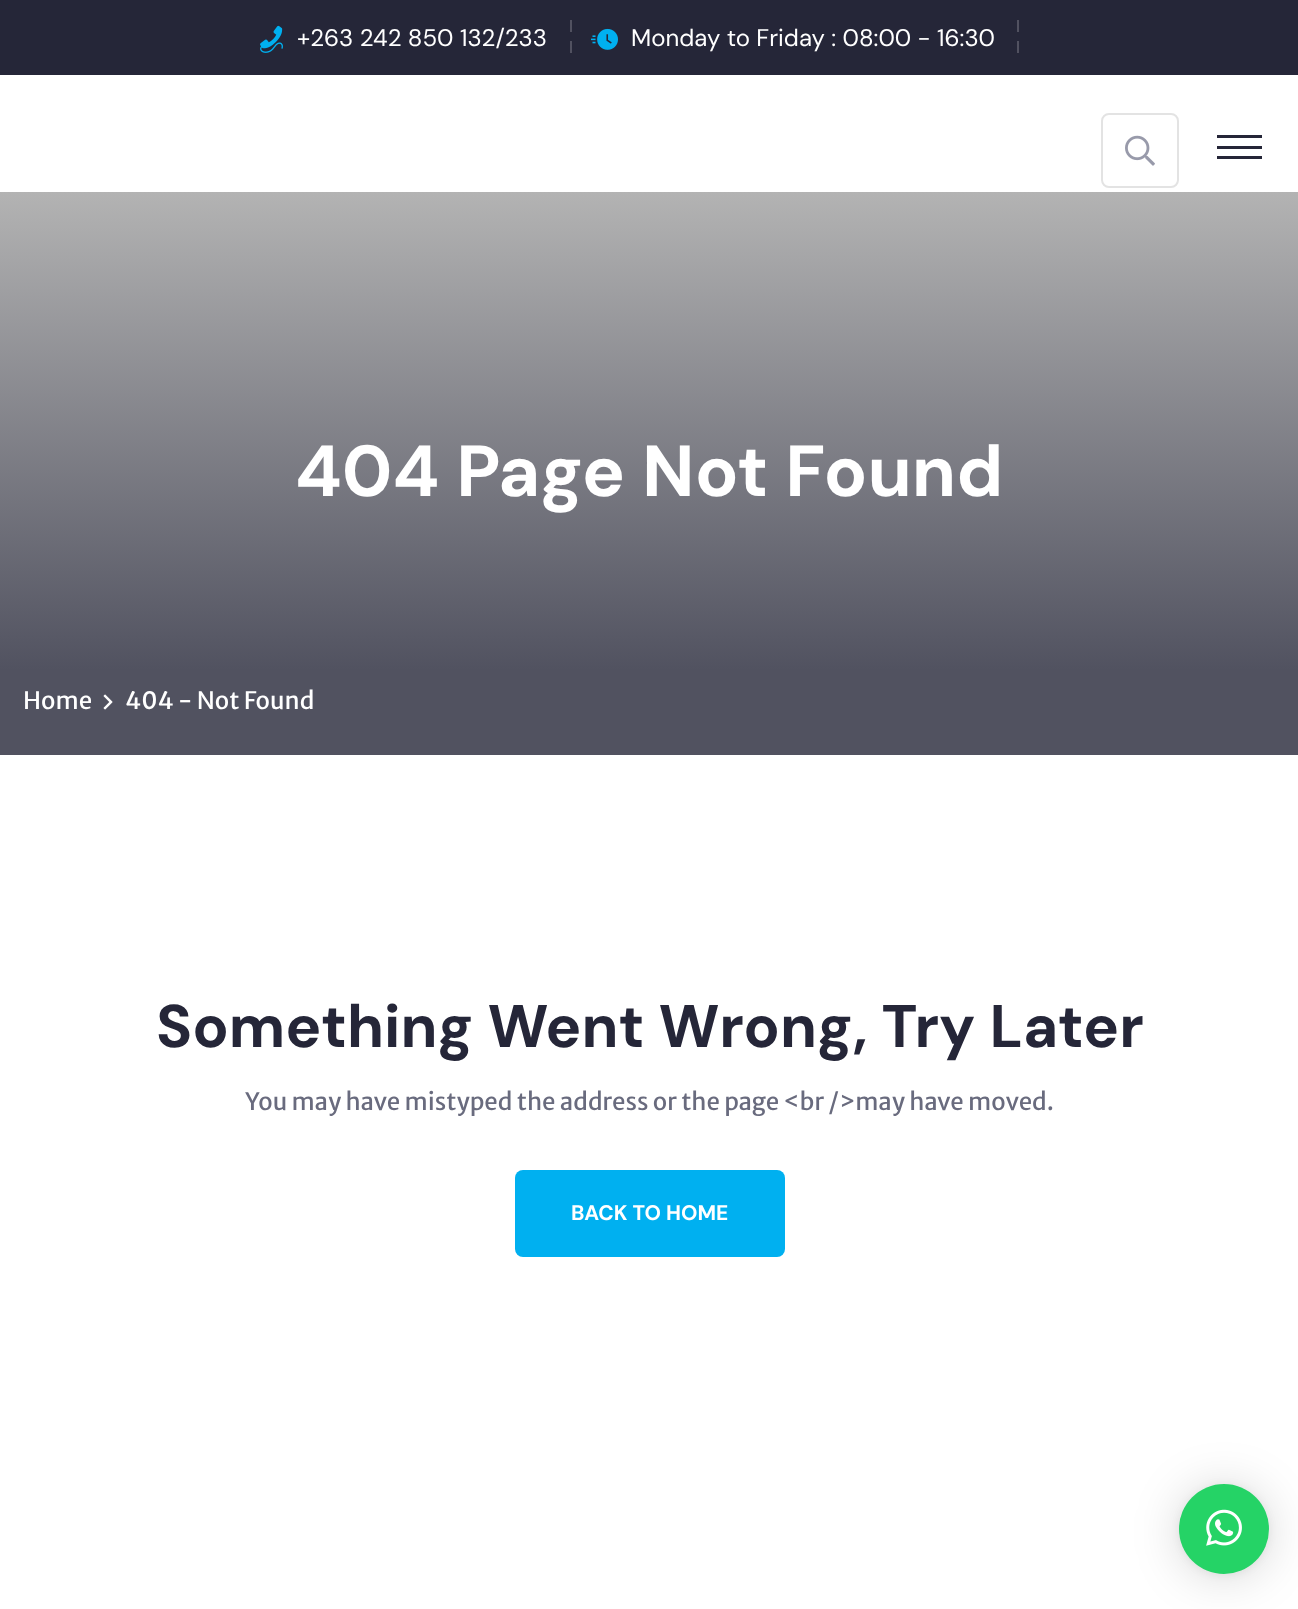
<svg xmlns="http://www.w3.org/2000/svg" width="1298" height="1609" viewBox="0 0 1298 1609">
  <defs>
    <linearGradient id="g1" gradientUnits="userSpaceOnUse" x1="650" y1="755" x2="650" y2="192"><stop offset="0.15" stop-color="#515260"/><stop offset="1" stop-color="#b3b3b3"/></linearGradient>
    <filter id="blur1" x="-50%" y="-200%" width="200%" height="500%"><feGaussianBlur stdDeviation="24"/></filter>
    <filter id="blur2" x="-50%" y="-200%" width="200%" height="500%"><feGaussianBlur stdDeviation="4.5"/></filter>
  </defs>
  <rect width="100%" height="100%" fill="#ffffff"/>
  <rect x="0" y="0" width="1298" height="75" fill="#252638"/>
  <image x="260" y="25" width="23" height="28" href="img1.png"/>
  <text x="297" y="46" font-family="DM Sans" font-size="24" fill="#ffffff">+263 242 850 132/233</text>
  <rect x="570" y="20" width="2" height="12" fill="#515160"/>
  <rect x="570" y="41" width="2" height="12" fill="#515160"/>
  <rect x="1017" y="20" width="2" height="12" fill="#515160"/>
  <image x="591" y="28" width="27" height="22" href="img2.png"/>
  <text x="631" y="46" font-family="DM Sans" font-size="24" fill="#ffffff">Monday to Friday : 08:00 - 16:30</text>
  <rect x="1017" y="41" width="2" height="12" fill="#515160"/>
  <rect x="1102" y="114" width="76" height="73" rx="7" fill="none" stroke="#e3e3e3" stroke-width="2"/>
  <image x="1125" y="135" width="30" height="31" href="img3.png"/>
  <rect x="1217" y="135" width="45" height="3" fill="#252638"/>
  <rect x="1217" y="146" width="45" height="3" fill="#252638"/>
  <rect x="1217" y="156" width="45" height="3" fill="#252638"/>
  <rect x="0" y="192" width="1298" height="563" fill="url(#g1)"/>
  <text x="295" y="496" font-family="DM Sans" font-size="72" font-weight="bold" fill="#ffffff">404 Page Not Found</text>
  <text x="23" y="709" font-family="Merriweather Sans" font-size="24" fill="#ffffff">Home</text>
  <image x="103" y="694" width="10" height="16" href="img4.png"/>
  <text x="125" y="709" font-family="Merriweather Sans" font-size="24" fill="#ffffff">404 - Not Found</text>
  <text x="156" y="1047" font-family="DM Sans" font-size="60" font-weight="bold" fill="#252638">Something Went Wrong, Try Later</text>
  <text x="245" y="1110" font-family="Merriweather Sans" font-size="24" fill="#696b7e">You may have mistyped the address or the page &lt;br /&gt;may have moved.</text>
  <rect x="515" y="1170" width="270" height="87" rx="8" fill="#00b0f0"/>
  <text x="571" y="1220" font-family="DM Sans" font-size="21" font-weight="bold" fill="#ffffff">BACK TO HOME</text>
  <rect x="1179" y="1487" width="90" height="90" rx="45" fill="#000000" fill-opacity="0.16" filter="url(#blur1)"/>
  <rect x="1179" y="1485" width="90" height="90" rx="45" fill="#000000" fill-opacity="0.06" filter="url(#blur2)"/>
  <circle cx="1224" cy="1529" r="45" fill="#25d366"/>
  <image x="1206" y="1509" width="36" height="37" href="img5.png"/>
</svg>
